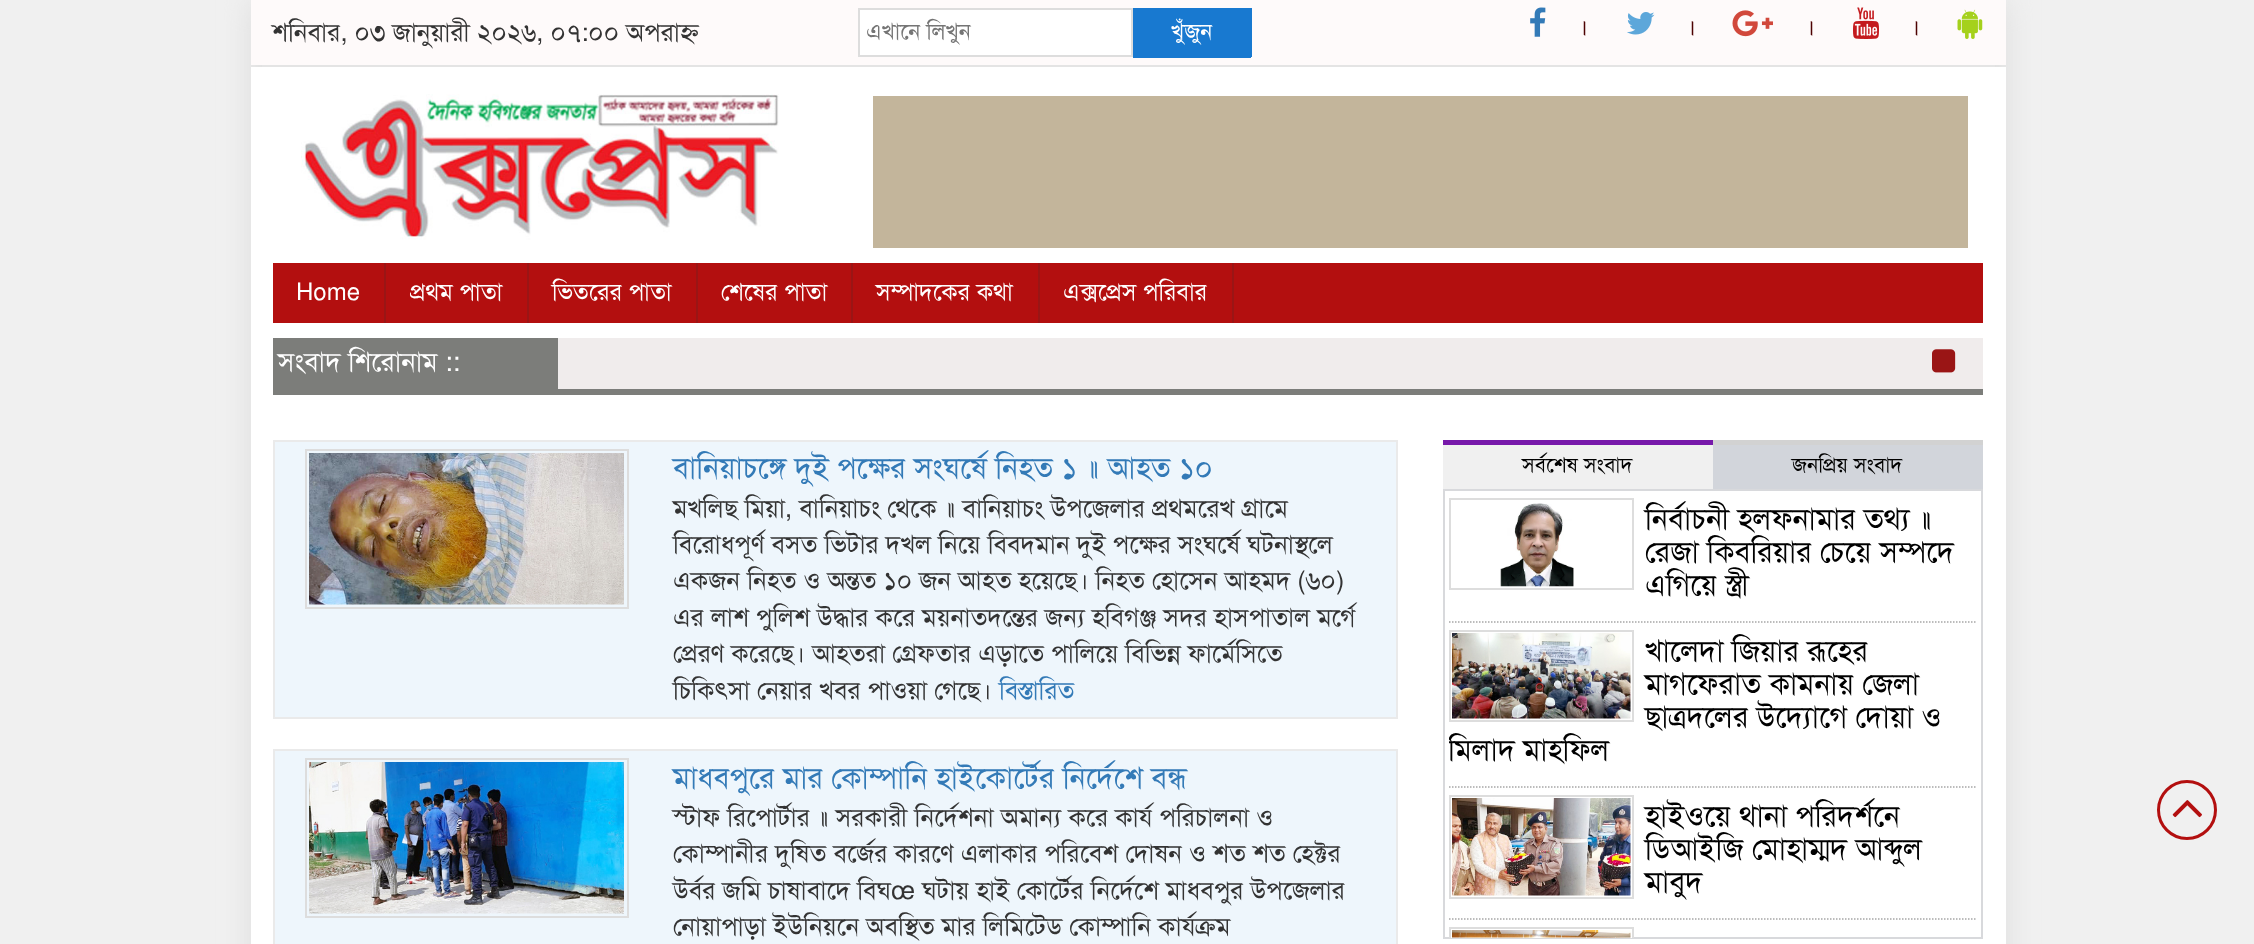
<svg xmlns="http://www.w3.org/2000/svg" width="2254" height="944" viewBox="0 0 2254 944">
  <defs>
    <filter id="blur1" x="-50%" y="-200%" width="200%" height="500%"><feGaussianBlur stdDeviation="15"/></filter>
    <clipPath id="clip1"><rect x="1449" y="627" width="528" height="159"/></clipPath>
    <clipPath id="clip2"><rect x="1449" y="924" width="528" height="14"/></clipPath>
  </defs>
  <rect width="100%" height="100%" fill="#f0f0f0"/>
  <rect x="251" y="0" width="1755" height="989" fill="#dddddd" filter="url(#blur1)"/>
  <rect x="251" y="67" width="1755" height="877" fill="#ffffff"/>
  <rect x="251" y="0" width="1755" height="65" fill="#fefafa"/>
  <rect x="262" y="65" width="1733" height="2" fill="#e4e4e4"/>
  <text x="272" y="41" font-family="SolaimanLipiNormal" font-size="25.5" fill="#333333">শনিবার, ০৩ জানুয়ারী ২০২৬, ০৭:০০ অপরাহ্ন</text>
  <rect x="859" y="9" width="273" height="47" fill="#ffffff" stroke="#dddddd" stroke-width="2"/>
  <text x="866" y="39" font-family="SolaimanLipiNormal" font-size="22.5" fill="#757575">এখানে লিখুন</text>
  <rect x="1133" y="8" width="117" height="48" fill="#1879d0"/>
  <rect x="1250" y="8" width="2" height="49" fill="#1879d0"/>
  <rect x="1133" y="56" width="118" height="2" fill="#1879d0"/>
  <text x="1171" y="39" font-family="SolaimanLipiNormal" font-size="22.5" fill="#ffffff">খুঁজুন</text>
  <image x="1530" y="7" width="16" height="30" href="img1.png"/>
  <text x="1577" y="35" font-family="SolaimanLipiNormal" font-size="25.5" fill="#4d0202">।</text>
  <image x="1627" y="12" width="28" height="23" href="img2.png"/>
  <text x="1685" y="35" font-family="SolaimanLipiNormal" font-size="25.5" fill="#4d0202">।</text>
  <image x="1732" y="10" width="41" height="27" href="img3.png"/>
  <text x="1804" y="35" font-family="SolaimanLipiNormal" font-size="25.5" fill="#4d0202">।</text>
  <image x="1853" y="7" width="26" height="32" href="img4.png"/>
  <text x="1909" y="35" font-family="SolaimanLipiNormal" font-size="25.5" fill="#4d0202">।</text>
  <image x="1957" y="9" width="26" height="30" href="img5.png"/>
  <image x="301" y="94" width="478" height="146" href="img6.png"/>
  <rect x="873" y="96" width="1095" height="152" fill="#c3b59b"/>
  <rect x="273" y="263" width="1710" height="60" fill="#b30f0f"/>
  <rect x="384" y="263" width="2" height="60" fill="#9a1515"/>
  <text x="296" y="300" font-family="SolaimanLipiNormal" font-size="24" fill="#ffffff">Home</text>
  <rect x="527" y="263" width="2" height="60" fill="#9a1515"/>
  <text x="410" y="300" font-family="SolaimanLipiNormal" font-size="24" fill="#ffffff">প্রথম পাতা</text>
  <rect x="696" y="263" width="2" height="60" fill="#9a1515"/>
  <text x="552" y="300" font-family="SolaimanLipiNormal" font-size="24" fill="#ffffff">ভিতরের পাতা</text>
  <rect x="851" y="263" width="2" height="60" fill="#9a1515"/>
  <text x="721" y="300" font-family="SolaimanLipiNormal" font-size="24" fill="#ffffff">শেষের পাতা</text>
  <rect x="1038" y="263" width="2" height="60" fill="#9a1515"/>
  <text x="876" y="300" font-family="SolaimanLipiNormal" font-size="24" fill="#ffffff">সম্পাদকের কথা</text>
  <rect x="1232" y="263" width="2" height="60" fill="#9a1515"/>
  <text x="1063" y="300" font-family="SolaimanLipiNormal" font-size="24" fill="#ffffff">এক্সপ্রেস পরিবার</text>
  <rect x="273" y="338" width="285" height="57" fill="#7c7d7a"/>
  <text x="278" y="371" font-family="SolaimanLipiNormal" font-size="27" fill="#ffffff">সংবাদ শিরোনাম ::</text>
  <rect x="558" y="338" width="1425" height="51" fill="#f0ecec"/>
  <rect x="558" y="389" width="1425" height="6" fill="#7c7d7a"/>
  <image x="1932" y="349" width="24" height="24" href="img7.png"/>
  <rect x="274" y="441" width="1123" height="277" fill="#eef6fc" stroke="#eaeaea" stroke-width="2"/>
  <rect x="306" y="450" width="322" height="158" fill="none" stroke="#dddddd" stroke-width="2"/>
  <image x="309" y="453" width="315" height="152" href="img8.png"/>
  <text x="673" y="478" font-family="SolaimanLipiNormal" font-size="30" fill="#337ab7">বানিয়াচঙ্গে দুই পক্ষের সংঘর্ষে নিহত ১ ॥ আহত ১০</text>
  <text x="673" y="517" font-family="SolaimanLipiNormal" font-size="25.5" fill="#333333">মখলিছ মিয়া, বানিয়াচং থেকে ॥ বানিয়াচং উপজেলার প্রথমরেখ গ্রামে</text>
  <text x="673" y="553" font-family="SolaimanLipiNormal" font-size="25.5" fill="#333333">বিরোধপূর্ণ বসত ভিটার দখল নিয়ে বিবদমান দুই পক্ষের সংঘর্ষে ঘটনাস্থলে</text>
  <text x="673" y="589" font-family="SolaimanLipiNormal" font-size="25.5" fill="#333333">একজন নিহত ও অন্তত ১০ জন আহত হয়েছে। নিহত হোসেন আহমদ (৬০)</text>
  <text x="673" y="626" font-family="SolaimanLipiNormal" font-size="25.5" fill="#333333">এর লাশ পুলিশ উদ্ধার করে ময়নাতদন্তের জন্য হবিগঞ্জ সদর হাসপাতাল মর্গে</text>
  <text x="673" y="662" font-family="SolaimanLipiNormal" font-size="25.5" fill="#333333">প্রেরণ করেছে। আহতরা গ্রেফতার এড়াতে পালিয়ে বিভিন্ন ফার্মেসিতে</text>
  <text x="673" y="699" font-family="SolaimanLipiNormal" font-size="25.5" fill="#333333">চিকিৎসা নেয়ার খবর পাওয়া গেছে।</text>
  <text x="999" y="699" font-family="SolaimanLipiNormal" font-size="25.5" fill="#337ab7">বিস্তারিত</text>
  <rect x="274" y="750" width="1123" height="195" fill="#eef6fc" stroke="#eaeaea" stroke-width="2"/>
  <rect x="306" y="759" width="322" height="158" fill="none" stroke="#dddddd" stroke-width="2"/>
  <image x="309" y="762" width="315" height="152" href="img9.png"/>
  <text x="673" y="788" font-family="SolaimanLipiNormal" font-size="30" fill="#337ab7">মাধবপুরে মার কোম্পানি হাইকোর্টের নির্দেশে বন্ধ</text>
  <text x="673" y="826" font-family="SolaimanLipiNormal" font-size="25.5" fill="#333333">স্টাফ রিপোর্টার ॥ সরকারী নির্দেশনা অমান্য করে কার্য পরিচালনা ও</text>
  <text x="673" y="862" font-family="SolaimanLipiNormal" font-size="25.5" fill="#333333">কোম্পানীর দুষিত বর্জের কারণে এলাকার পরিবেশ দোষন ও শত শত হেক্টর</text>
  <text x="673" y="899" font-family="SolaimanLipiNormal" font-size="25.5" fill="#333333">উর্বর জমি চাষাবাদে বিঘœ ঘটায় হাই কোর্টের নির্দেশে মাধবপুর উপজেলার</text>
  <text x="673" y="935" font-family="SolaimanLipiNormal" font-size="25.5" fill="#333333">নোয়াপাড়া ইউনিয়নে অবস্থিত মার লিমিটেড কোম্পানি কার্যক্রম</text>
  <rect x="1713" y="445" width="270" height="44" fill="#d2d5db"/>
  <rect x="1443" y="445" width="270" height="44" fill="#f0f0f0"/>
  <rect x="1443" y="440" width="270" height="5" fill="#7719aa"/>
  <text x="1522" y="472" font-family="SolaimanLipiNormal" font-size="21" fill="#000000">সর্বশেষ সংবাদ</text>
  <rect x="1713" y="440" width="270" height="5" fill="#d2d2d2"/>
  <text x="1792" y="472" font-family="SolaimanLipiNormal" font-size="21" fill="#000000">জনপ্রিয় সংবাদ</text>
  <rect x="1444" y="490" width="538" height="448" fill="none" stroke="#d8d9dc" stroke-width="2"/>
  <path d="M1449 622H1977" fill="none" stroke="#a6a6a6" stroke-width="1.5" stroke-dasharray="1.5 1.5"/>
  <rect x="1450" y="499" width="183" height="90" fill="none" stroke="#dddddd" stroke-width="2"/>
  <image x="1500" y="503" width="74" height="84" href="img10.png"/>
  <text x="1645" y="529" font-family="SolaimanLipiNormal" font-size="30" fill="#000000">নির্বাচনী হলফনামার তথ্য ॥</text>
  <text x="1645" y="562" font-family="SolaimanLipiNormal" font-size="30" fill="#000000">রেজা কিবরিয়ার চেয়ে সম্পদে</text>
  <text x="1645" y="595" font-family="SolaimanLipiNormal" font-size="30" fill="#000000">এগিয়ে স্ত্রী</text>
  <path d="M1449 787H1977" fill="none" stroke="#a6a6a6" stroke-width="1.5" stroke-dasharray="1.5 1.5"/>
  <rect x="1450" y="631" width="183" height="90" fill="none" stroke="#dddddd" stroke-width="2"/>
  <image x="1452" y="633" width="179" height="86" href="img11.png"/>
  <text x="1645" y="661" font-family="SolaimanLipiNormal" font-size="30" fill="#000000">খালেদা জিয়ার রূহের</text>
  <text x="1645" y="694" font-family="SolaimanLipiNormal" font-size="30" fill="#000000">মাগফেরাত কামনায় জেলা</text>
  <text x="1645" y="727" font-family="SolaimanLipiNormal" font-size="30" fill="#000000">ছাত্রদলের উদ্যোগে দোয়া ও</text>
  <g clip-path="url(#clip1)">
    <text x="1448" y="760" font-family="SolaimanLipiNormal" font-size="30" fill="#000000">মিলাদ মাহফিল</text>
  </g>
  <path d="M1449 919H1977" fill="none" stroke="#a6a6a6" stroke-width="1.5" stroke-dasharray="1.5 1.5"/>
  <rect x="1450" y="796" width="183" height="102" fill="none" stroke="#dddddd" stroke-width="2"/>
  <image x="1452" y="798" width="179" height="98" href="img12.png"/>
  <text x="1645" y="826" font-family="SolaimanLipiNormal" font-size="30" fill="#000000">হাইওয়ে থানা পরিদর্শনে</text>
  <text x="1645" y="859" font-family="SolaimanLipiNormal" font-size="30" fill="#000000">ডিআইজি মোহাম্মদ আব্দুল</text>
  <text x="1645" y="892" font-family="SolaimanLipiNormal" font-size="30" fill="#000000">মাবুদ</text>
  <rect x="1451" y="937" width="181" height="1" fill="#ffffff"/>
  <g clip-path="url(#clip2)">
    <rect x="1450" y="928" width="183" height="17" fill="none" stroke="#dddddd" stroke-width="2"/>
  </g>
  <image x="1452" y="930" width="179" height="8" href="img13.png"/>
  <circle cx="2187" cy="810" r="28.5" fill="none" stroke="#b30f0f" stroke-width="3"/>
  <image x="2172" y="800" width="30" height="18" href="img14.png"/>
</svg>
